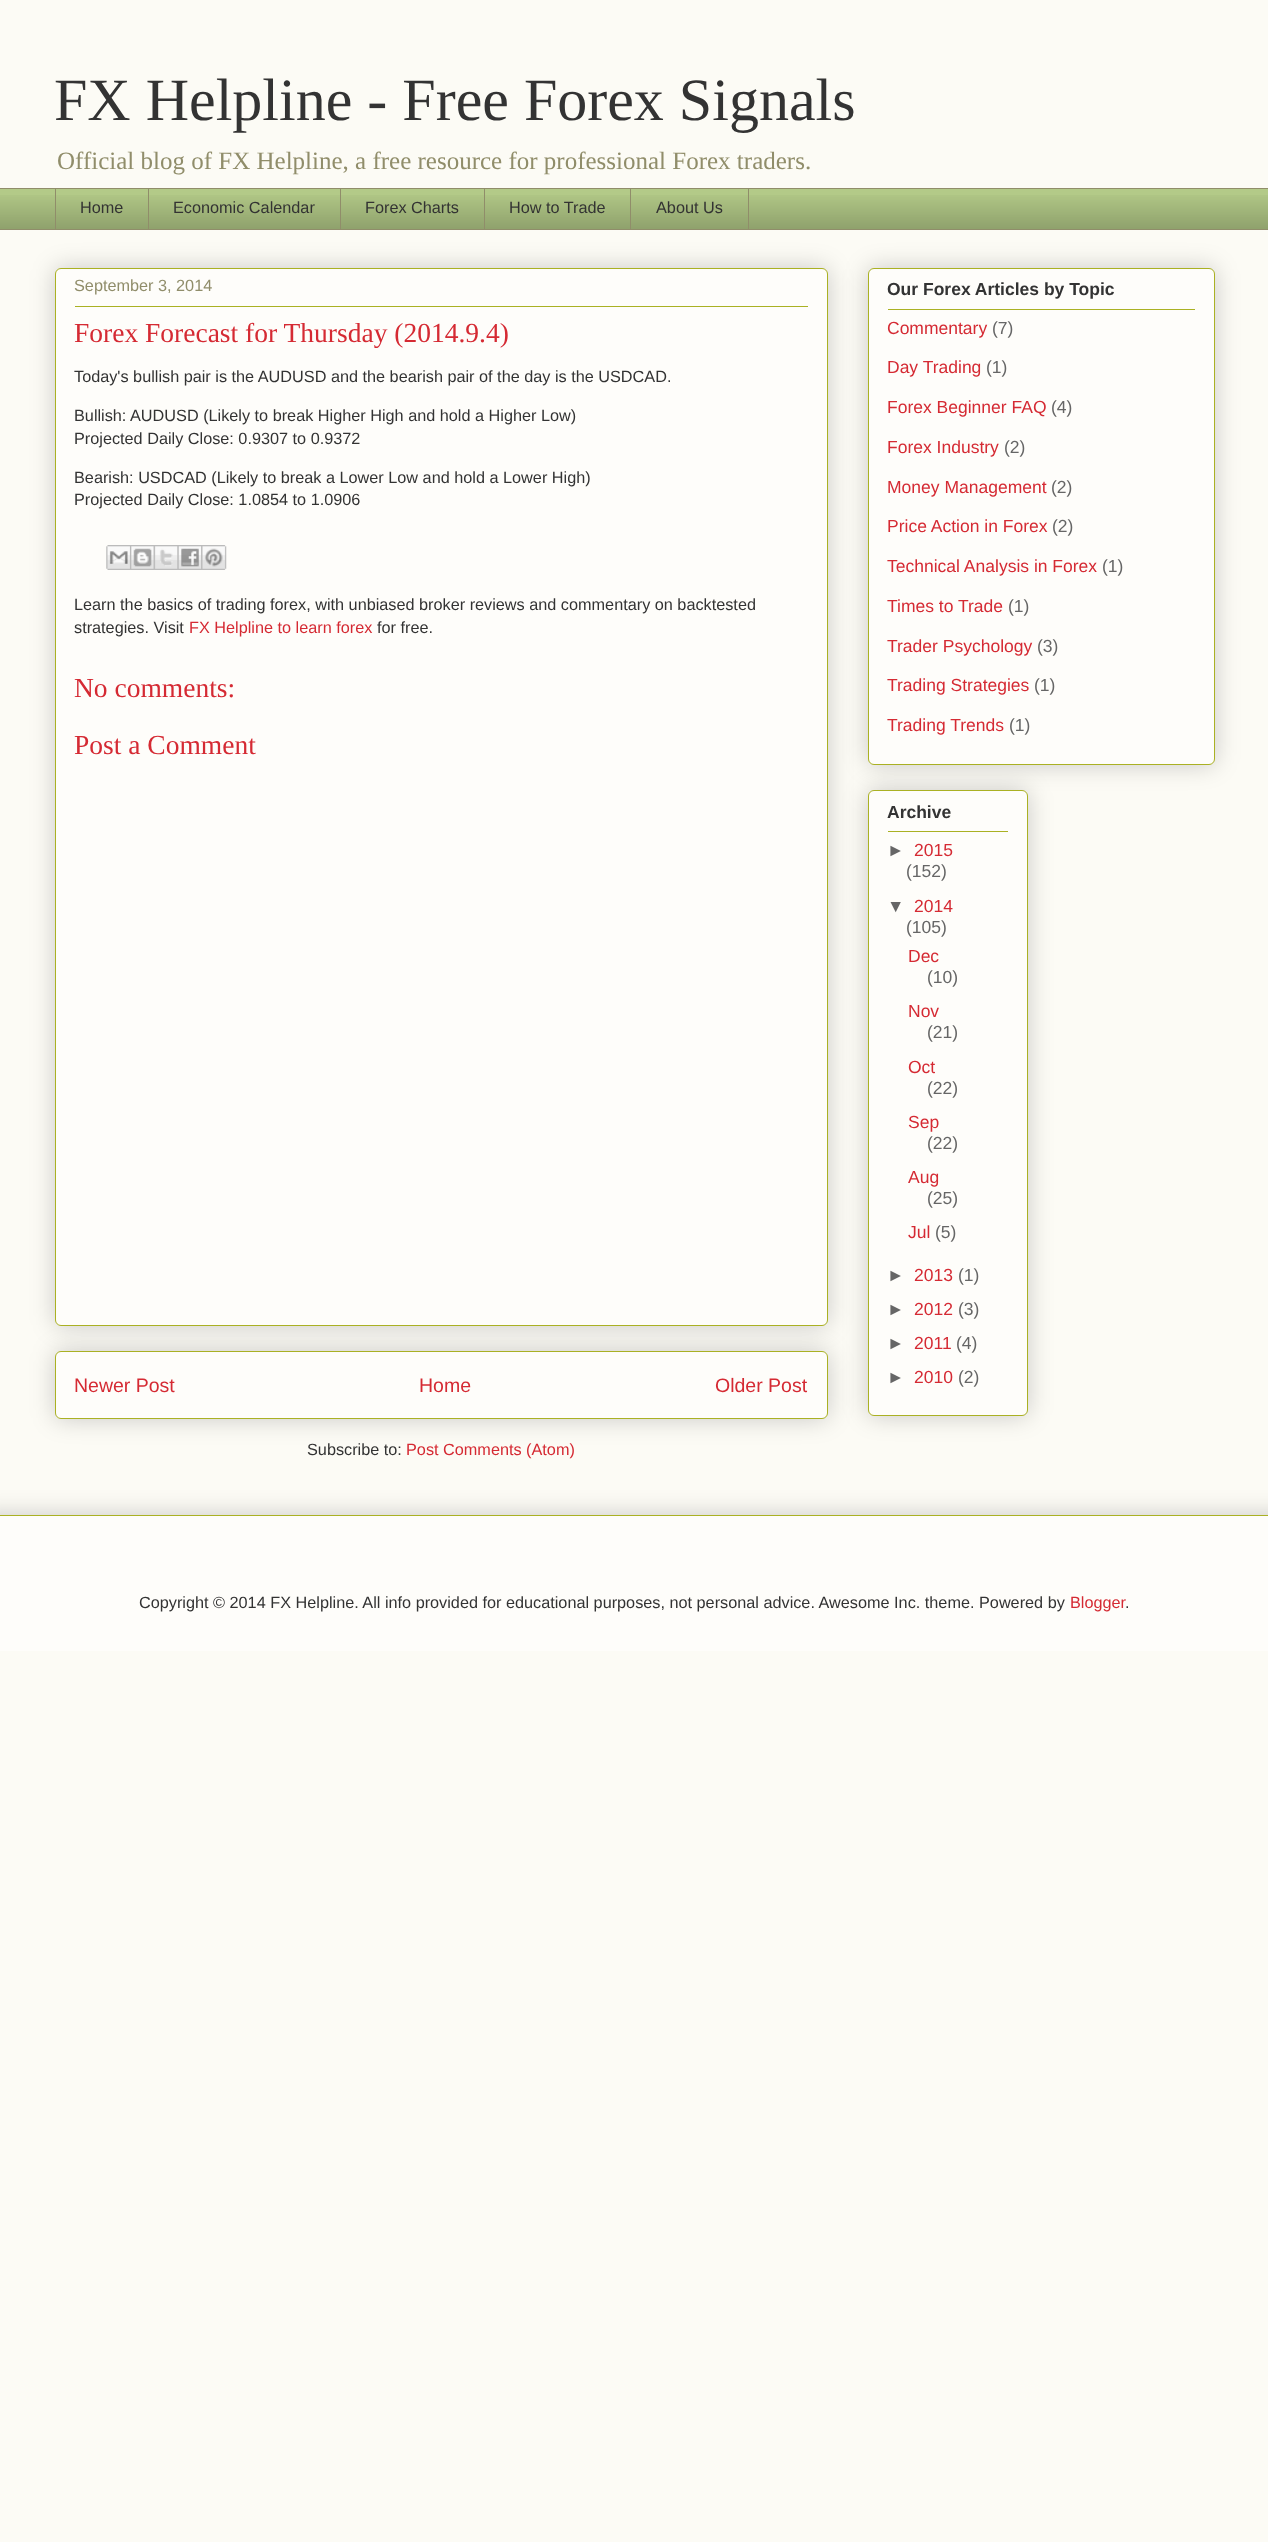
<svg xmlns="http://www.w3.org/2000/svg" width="1268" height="2542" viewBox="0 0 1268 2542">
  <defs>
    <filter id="blur1" x="-50%" y="-200%" width="200%" height="500%"><feGaussianBlur stdDeviation="12.5"/></filter>
    <clipPath id="clip1"><rect x="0" y="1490" width="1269" height="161"/></clipPath>
  </defs>
  <rect width="100%" height="100%" fill="#fcfbf5"/>
  <text x="54" y="120" font-family="Liberation Serif" font-size="60" fill="#333333">FX Helpline - Free Forex Signals</text>
  <text x="57" y="169" font-family="Liberation Serif" font-size="25" fill="#908d6a">Official blog of FX Helpline, a free resource for professional Forex traders.</text>
  <rect x="0" y="189" width="1268" height="40" fill="#b3ca88"/>
  <image x="0" y="195" width="1268" height="34" href="img1.png"/>
  <rect x="0" y="188" width="1268" height="1" fill="#908d6a"/>
  <rect x="55" y="188" width="1" height="42" fill="#908d6a"/>
  <text x="80" y="213" font-family="Liberation Sans" font-size="16.25" fill="#333333">Home</text>
  <rect x="148" y="188" width="1" height="42" fill="#908d6a"/>
  <text x="173" y="213" font-family="Liberation Sans" font-size="16.25" fill="#333333">Economic Calendar</text>
  <rect x="340" y="188" width="1" height="42" fill="#908d6a"/>
  <text x="365" y="213" font-family="Liberation Sans" font-size="16.25" fill="#333333">Forex Charts</text>
  <rect x="484" y="188" width="1" height="42" fill="#908d6a"/>
  <text x="509" y="213" font-family="Liberation Sans" font-size="16.25" fill="#333333">How to Trade</text>
  <rect x="630.5" y="188.5" width="118" height="41" fill="none" stroke="#908d6a"/>
  <text x="656" y="213" font-family="Liberation Sans" font-size="16.25" fill="#333333">About Us</text>
  <rect x="0" y="229" width="1268" height="1" fill="#908d6a"/>
  <rect x="55" y="1351" width="773" height="68" rx="6" fill="#000000" fill-opacity="0.2" filter="url(#blur1)"/>
  <rect x="55.5" y="1351.5" width="772" height="67" rx="5.5" fill="#fefdfa" stroke="#aab123"/>
  <rect x="55" y="268" width="773" height="1058" rx="6" fill="#000000" fill-opacity="0.2" filter="url(#blur1)"/>
  <rect x="55.5" y="268.5" width="772" height="1057" rx="5.5" fill="#fefdfa" stroke="#aab123"/>
  <text x="74" y="291" font-family="Liberation Sans" font-size="16.25" fill="#908d6a">September 3, 2014</text>
  <rect x="75" y="306" width="733" height="1" fill="#aab123"/>
  <text x="74" y="342" font-family="Liberation Serif" font-size="27.5" fill="#d52a33">Forex Forecast for Thursday (2014.9.4)</text>
  <text x="74" y="382" font-family="Liberation Sans" font-size="16.25" fill="#333333">Today's bullish pair is the AUDUSD and the bearish pair of the day is the USDCAD.</text>
  <text x="74" y="421" font-family="Liberation Sans" font-size="16.25" fill="#333333">Bullish: AUDUSD (Likely to break Higher High and hold a Higher Low)</text>
  <text x="74" y="444" font-family="Liberation Sans" font-size="16.25" fill="#333333">Projected Daily Close: 0.9307 to 0.9372</text>
  <text x="74" y="483" font-family="Liberation Sans" font-size="16.25" fill="#333333">Bearish: USDCAD (Likely to break a Lower Low and hold a Lower High)</text>
  <text x="74" y="505" font-family="Liberation Sans" font-size="16.25" fill="#333333">Projected Daily Close: 1.0854 to 1.0906</text>
  <image x="106" y="545" width="24" height="25" href="img2.png"/>
  <image x="130" y="545" width="24" height="25" href="img3.png"/>
  <image x="153" y="545" width="25" height="25" href="img4.png"/>
  <image x="177" y="545" width="25" height="25" href="img5.png"/>
  <image x="201" y="545" width="26" height="25" href="img6.png"/>
  <text x="74" y="610" font-family="Liberation Sans" font-size="16.25" fill="#333333">Learn the basics of trading forex, with unbiased broker reviews and commentary on backtested</text>
  <text x="74" y="633" font-family="Liberation Sans" font-size="16.25" fill="#333333">strategies. Visit</text>
  <text x="189" y="633" font-family="Liberation Sans" font-size="16.25" fill="#d52a33">FX Helpline to learn forex</text>
  <text x="377" y="633" font-family="Liberation Sans" font-size="16.25" fill="#333333">for free.</text>
  <text x="74" y="697" font-family="Liberation Serif" font-size="27.5" fill="#d52a33">No comments:</text>
  <text x="74" y="754" font-family="Liberation Serif" font-size="27.5" fill="#d52a33">Post a Comment</text>
  <text x="74" y="1392" font-family="Liberation Sans" font-size="19.5" fill="#d52a33">Newer Post</text>
  <text x="419" y="1392" font-family="Liberation Sans" font-size="19.5" fill="#d52a33">Home</text>
  <text x="715" y="1392" font-family="Liberation Sans" font-size="19.5" fill="#d52a33">Older Post</text>
  <text x="307" y="1455" font-family="Liberation Sans" font-size="16.25" fill="#333333">Subscribe to:</text>
  <text x="406" y="1455" font-family="Liberation Sans" font-size="16.25" fill="#d52a33">Post Comments (Atom)</text>
  <rect x="868" y="268" width="347" height="497" rx="6" fill="#000000" fill-opacity="0.2" filter="url(#blur1)"/>
  <rect x="868.5" y="268.5" width="346" height="496" rx="5.5" fill="#fefdfa" stroke="#aab123"/>
  <text x="887" y="295" font-family="Liberation Sans" font-size="17.5" font-weight="bold" fill="#333333">Our Forex Articles by Topic</text>
  <rect x="888" y="309" width="307" height="1" fill="#aab123"/>
  <text x="887" y="334" font-family="Liberation Sans" font-size="17.5" fill="#d52a33">Commentary</text>
  <text x="992" y="334" font-family="Liberation Sans" font-size="17.5" fill="#666666">(7)</text>
  <text x="887" y="373" font-family="Liberation Sans" font-size="17.5" fill="#d52a33">Day Trading</text>
  <text x="986" y="373" font-family="Liberation Sans" font-size="17.5" fill="#666666">(1)</text>
  <text x="887" y="413" font-family="Liberation Sans" font-size="17.5" fill="#d52a33">Forex Beginner FAQ</text>
  <text x="1051" y="413" font-family="Liberation Sans" font-size="17.5" fill="#666666">(4)</text>
  <text x="887" y="453" font-family="Liberation Sans" font-size="17.5" fill="#d52a33">Forex Industry</text>
  <text x="1004" y="453" font-family="Liberation Sans" font-size="17.5" fill="#666666">(2)</text>
  <text x="887" y="493" font-family="Liberation Sans" font-size="17.5" fill="#d52a33">Money Management</text>
  <text x="1051" y="493" font-family="Liberation Sans" font-size="17.5" fill="#666666">(2)</text>
  <text x="887" y="532" font-family="Liberation Sans" font-size="17.5" fill="#d52a33">Price Action in Forex</text>
  <text x="1052" y="532" font-family="Liberation Sans" font-size="17.5" fill="#666666">(2)</text>
  <text x="887" y="572" font-family="Liberation Sans" font-size="17.5" fill="#d52a33">Technical Analysis in Forex</text>
  <text x="1102" y="572" font-family="Liberation Sans" font-size="17.5" fill="#666666">(1)</text>
  <text x="887" y="612" font-family="Liberation Sans" font-size="17.5" fill="#d52a33">Times to Trade</text>
  <text x="1008" y="612" font-family="Liberation Sans" font-size="17.5" fill="#666666">(1)</text>
  <text x="887" y="652" font-family="Liberation Sans" font-size="17.5" fill="#d52a33">Trader Psychology</text>
  <text x="1037" y="652" font-family="Liberation Sans" font-size="17.5" fill="#666666">(3)</text>
  <text x="887" y="691" font-family="Liberation Sans" font-size="17.5" fill="#d52a33">Trading Strategies</text>
  <text x="1034" y="691" font-family="Liberation Sans" font-size="17.5" fill="#666666">(1)</text>
  <text x="887" y="731" font-family="Liberation Sans" font-size="17.5" fill="#d52a33">Trading Trends</text>
  <text x="1009" y="731" font-family="Liberation Sans" font-size="17.5" fill="#666666">(1)</text>
  <rect x="868" y="790" width="160" height="626" rx="6" fill="#000000" fill-opacity="0.2" filter="url(#blur1)"/>
  <rect x="868.5" y="790.5" width="159" height="625" rx="5.5" fill="#fefdfa" stroke="#aab123"/>
  <text x="887" y="818" font-family="Liberation Sans" font-size="17.5" font-weight="bold" fill="#333333">Archive</text>
  <rect x="888" y="831" width="120" height="1" fill="#aab123"/>
  <text x="887" y="856" font-family="Liberation Sans" font-size="17.5" fill="#666666">►</text>
  <text x="914" y="856" font-family="Liberation Sans" font-size="17.5" fill="#d52a33">2015</text>
  <text x="906" y="877" font-family="Liberation Sans" font-size="17.5" fill="#666666">(152)</text>
  <text x="887" y="912" font-family="Liberation Sans" font-size="17.5" fill="#666666">▼</text>
  <text x="914" y="912" font-family="Liberation Sans" font-size="17.5" fill="#d52a33">2014</text>
  <text x="906" y="933" font-family="Liberation Sans" font-size="17.5" fill="#666666">(105)</text>
  <text x="908" y="962" font-family="Liberation Sans" font-size="17.5" fill="#d52a33">Dec</text>
  <text x="927" y="983" font-family="Liberation Sans" font-size="17.5" fill="#666666">(10)</text>
  <text x="908" y="1017" font-family="Liberation Sans" font-size="17.5" fill="#d52a33">Nov</text>
  <text x="927" y="1038" font-family="Liberation Sans" font-size="17.5" fill="#666666">(21)</text>
  <text x="908" y="1073" font-family="Liberation Sans" font-size="17.5" fill="#d52a33">Oct</text>
  <text x="927" y="1094" font-family="Liberation Sans" font-size="17.5" fill="#666666">(22)</text>
  <text x="908" y="1128" font-family="Liberation Sans" font-size="17.5" fill="#d52a33">Sep</text>
  <text x="927" y="1149" font-family="Liberation Sans" font-size="17.5" fill="#666666">(22)</text>
  <text x="908" y="1183" font-family="Liberation Sans" font-size="17.5" fill="#d52a33">Aug</text>
  <text x="927" y="1204" font-family="Liberation Sans" font-size="17.5" fill="#666666">(25)</text>
  <text x="908" y="1238" font-family="Liberation Sans" font-size="17.5" fill="#d52a33">Jul</text>
  <text x="935" y="1238" font-family="Liberation Sans" font-size="17.5" fill="#666666">(5)</text>
  <text x="887" y="1281" font-family="Liberation Sans" font-size="17.5" fill="#666666">►</text>
  <text x="914" y="1281" font-family="Liberation Sans" font-size="17.5" fill="#d52a33">2013</text>
  <text x="958" y="1281" font-family="Liberation Sans" font-size="17.5" fill="#666666">(1)</text>
  <text x="887" y="1315" font-family="Liberation Sans" font-size="17.5" fill="#666666">►</text>
  <text x="914" y="1315" font-family="Liberation Sans" font-size="17.5" fill="#d52a33">2012</text>
  <text x="958" y="1315" font-family="Liberation Sans" font-size="17.5" fill="#666666">(3)</text>
  <text x="887" y="1349" font-family="Liberation Sans" font-size="17.5" fill="#666666">►</text>
  <text x="914" y="1349" font-family="Liberation Sans" font-size="17.5" fill="#d52a33">2011</text>
  <text x="956" y="1349" font-family="Liberation Sans" font-size="17.5" fill="#666666">(4)</text>
  <text x="887" y="1383" font-family="Liberation Sans" font-size="17.5" fill="#666666">►</text>
  <text x="914" y="1383" font-family="Liberation Sans" font-size="17.5" fill="#d52a33">2010</text>
  <text x="958" y="1383" font-family="Liberation Sans" font-size="17.5" fill="#666666">(2)</text>
  <g clip-path="url(#clip1)">
    <rect x="-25" y="1515" width="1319" height="136" fill="#000000" fill-opacity="0.2" filter="url(#blur1)"/>
  </g>
  <rect x="0" y="1516" width="1268" height="135" fill="#fefdfa"/>
  <rect x="0" y="1515" width="1268" height="1" fill="#aab123"/>
  <text x="139" y="1608" font-family="Liberation Sans" font-size="16.25" fill="#333333">Copyright © 2014 FX Helpline. All info provided for educational purposes, not personal advice. Awesome Inc. theme. Powered by</text>
  <text x="1070" y="1608" font-family="Liberation Sans" font-size="16.25" fill="#d52a33">Blogger</text>
  <text x="1125" y="1608" font-family="Liberation Sans" font-size="16.25" fill="#333333">.</text>
</svg>
